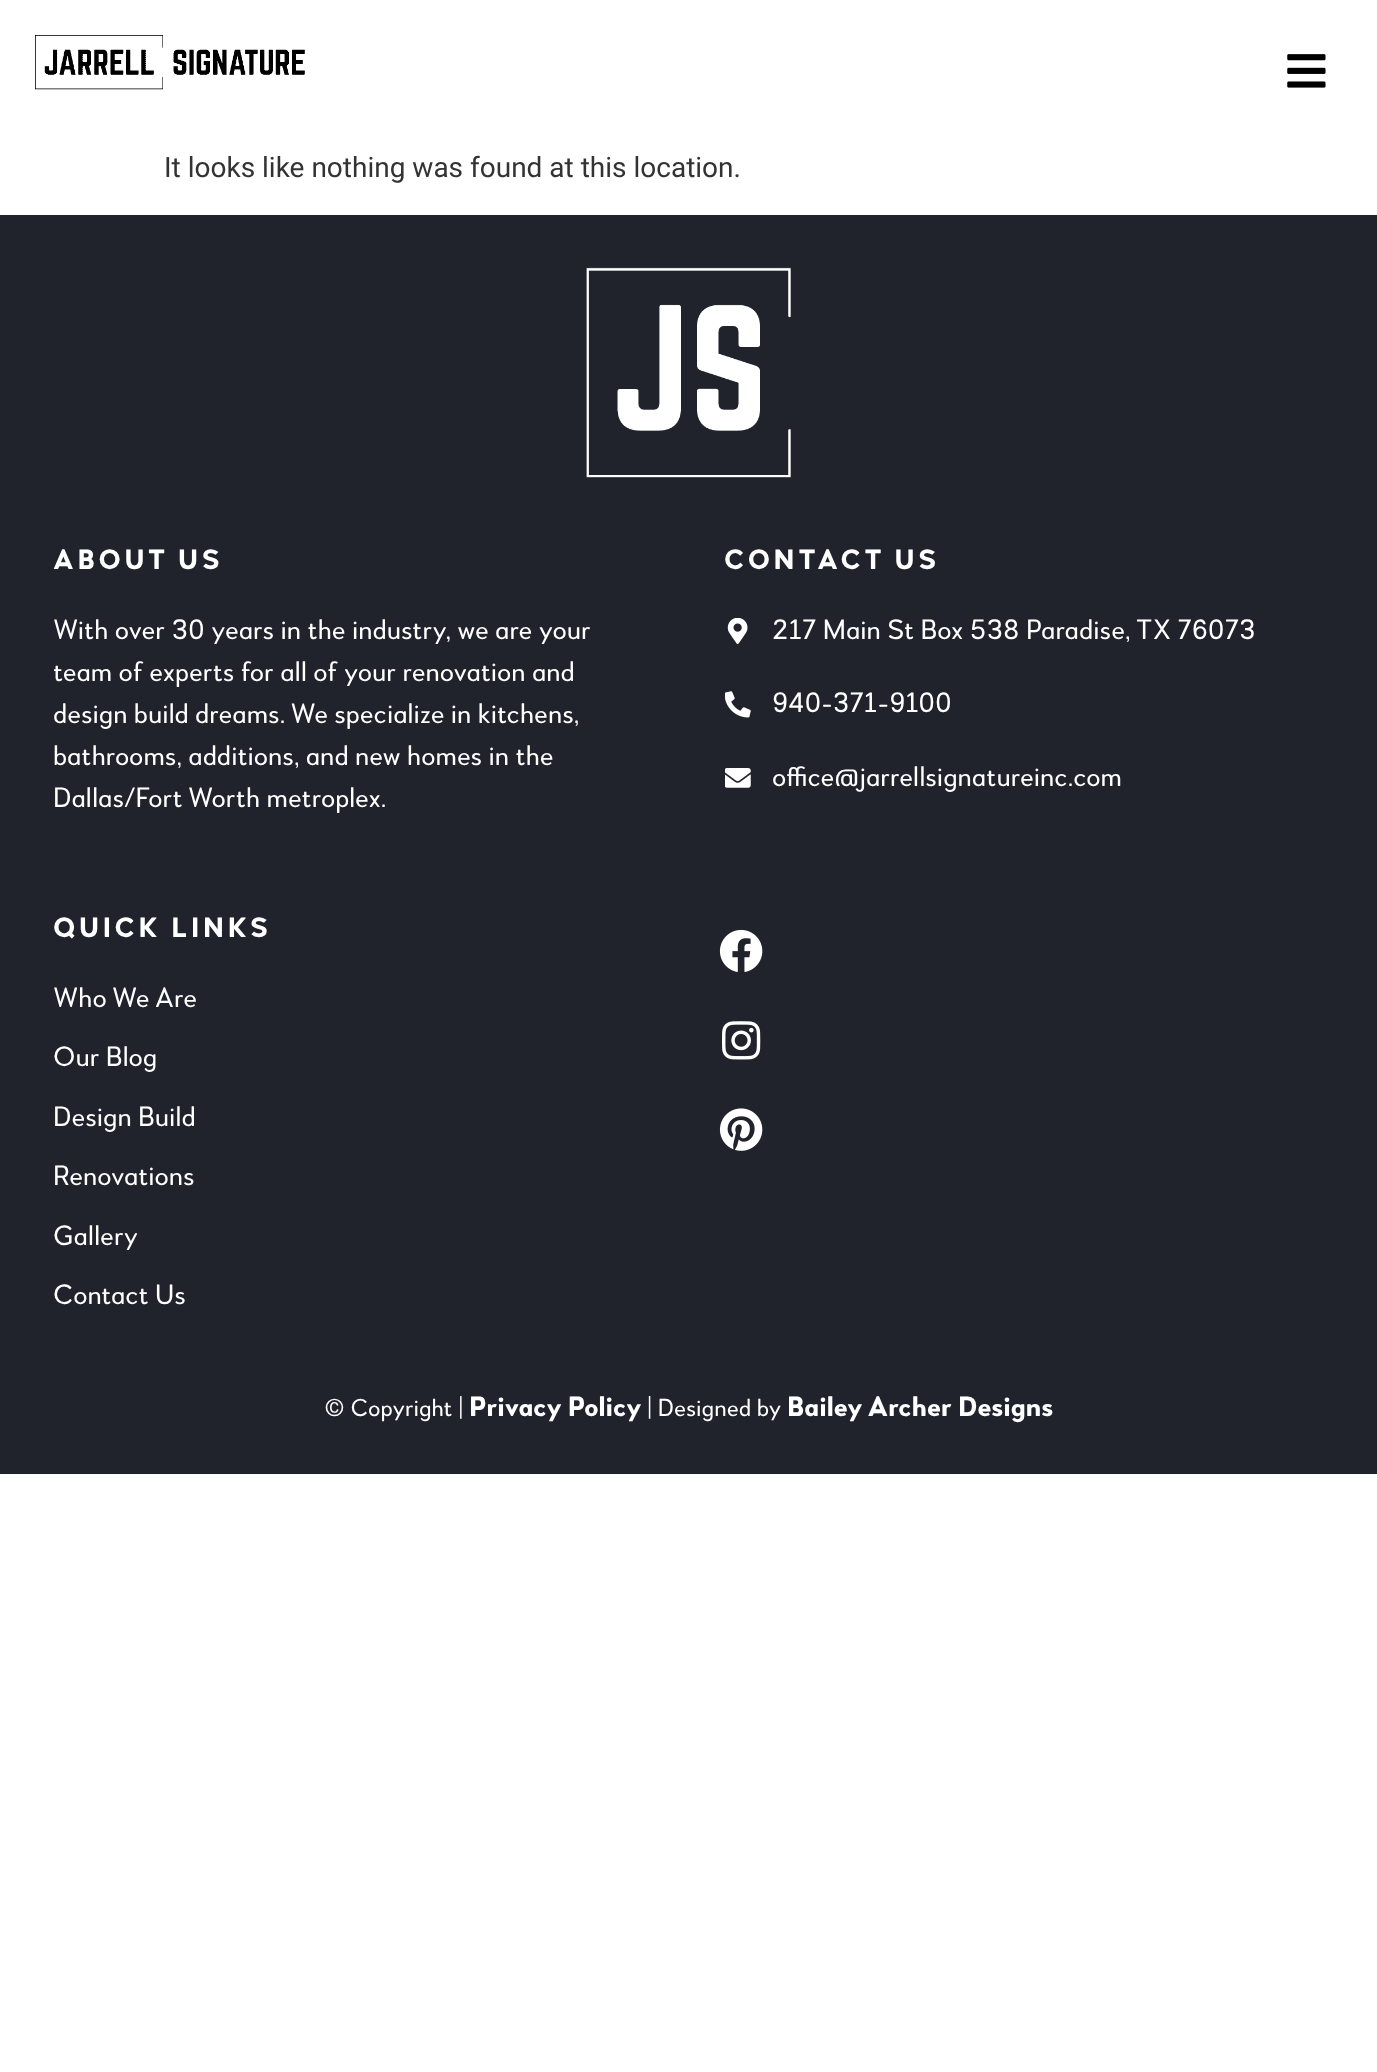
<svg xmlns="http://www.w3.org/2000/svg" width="1377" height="2072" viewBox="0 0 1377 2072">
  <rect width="100%" height="100%" fill="#ffffff"/>
  <image x="35" y="35" width="270" height="55" href="img1.png"/>
  <image x="1287" y="54" width="39" height="34" href="img2.png"/>
  <text x="164" y="177" font-family="Roboto" font-size="28" fill="#333333">It looks like nothing was found at this location.</text>
  <rect x="0" y="215" width="1377" height="1259" fill="#20222c"/>
  <image x="586" y="267" width="205" height="211" href="img3.png"/>
  <text x="53" y="569" font-family="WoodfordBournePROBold" font-size="28" font-weight="bold" letter-spacing="3.8" fill="#ffffff">ABOUT US</text>
  <text x="53" y="639" font-family="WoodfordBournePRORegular" font-size="28" fill="#ffffff">With over 30 years in the industry, we are your</text>
  <text x="53" y="681" font-family="WoodfordBournePRORegular" font-size="28" fill="#ffffff">team of experts for all of your renovation and</text>
  <text x="53" y="723" font-family="WoodfordBournePRORegular" font-size="28" fill="#ffffff">design build dreams. We specialize in kitchens,</text>
  <text x="53" y="765" font-family="WoodfordBournePRORegular" font-size="28" fill="#ffffff">bathrooms, additions, and new homes in the</text>
  <text x="53" y="807" font-family="WoodfordBournePRORegular" font-size="28" fill="#ffffff">Dallas/Fort Worth metroplex.</text>
  <text x="724" y="569" font-family="WoodfordBournePROBold" font-size="28" font-weight="bold" letter-spacing="3.8" fill="#ffffff">CONTACT US</text>
  <image x="727" y="618" width="21" height="26" href="img4.png"/>
  <text x="772" y="639" font-family="WoodfordBournePRORegular" font-size="28" fill="#ffffff">217 Main St Box 538 Paradise, TX 76073</text>
  <image x="725" y="691" width="26" height="27" href="img5.png"/>
  <text x="772" y="712" font-family="WoodfordBournePRORegular" font-size="28" fill="#ffffff">940-371-9100</text>
  <image x="725" y="768" width="26" height="20" href="img6.png"/>
  <text x="772" y="786" font-family="WoodfordBournePRORegular" font-size="28" fill="#ffffff">office@jarrellsignatureinc.com</text>
  <text x="53" y="937" font-family="WoodfordBournePROBold" font-size="28" font-weight="bold" letter-spacing="3.8" fill="#ffffff">QUICK LINKS</text>
  <text x="53" y="1007" font-family="WoodfordBournePRORegular" font-size="28" fill="#ffffff">Who We Are</text>
  <text x="53" y="1066" font-family="WoodfordBournePRORegular" font-size="28" fill="#ffffff">Our Blog</text>
  <text x="53" y="1126" font-family="WoodfordBournePRORegular" font-size="28" fill="#ffffff">Design Build</text>
  <text x="53" y="1185" font-family="WoodfordBournePRORegular" font-size="28" fill="#ffffff">Renovations</text>
  <text x="53" y="1245" font-family="WoodfordBournePRORegular" font-size="28" fill="#ffffff">Gallery</text>
  <text x="53" y="1304" font-family="WoodfordBournePRORegular" font-size="28" fill="#ffffff">Contact Us</text>
  <image x="719" y="929" width="44" height="43" href="img7.png"/>
  <image x="722" y="1021" width="39" height="39" href="img8.png"/>
  <image x="719" y="1108" width="44" height="43" href="img9.png"/>
  <text x="324" y="1416" font-family="WoodfordBournePRORegular" font-size="24.5" fill="#ffffff">© Copyright |</text>
  <text x="469" y="1416" font-family="WoodfordBournePROBold" font-size="28" font-weight="bold" fill="#ffffff">Privacy Policy</text>
  <text x="647" y="1416" font-family="WoodfordBournePRORegular" font-size="24.5" fill="#ffffff">| Designed by</text>
  <text x="787" y="1416" font-family="WoodfordBournePROBold" font-size="28" font-weight="bold" fill="#ffffff">Bailey Archer Designs</text>
</svg>
